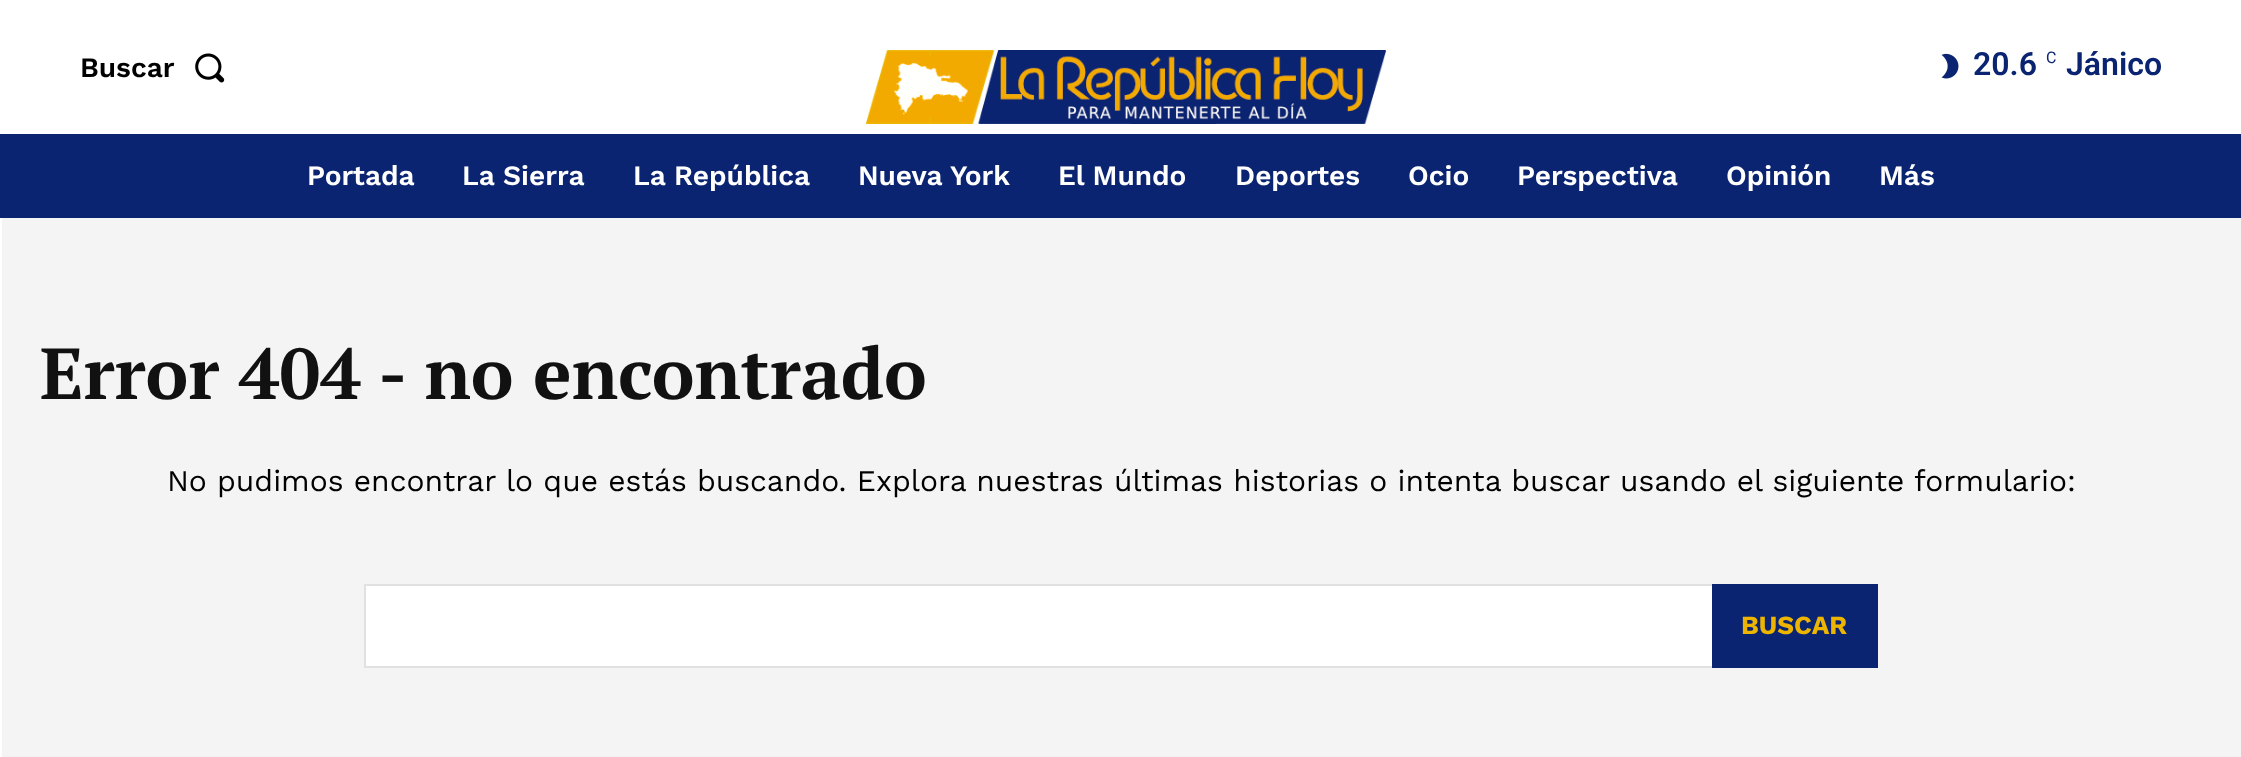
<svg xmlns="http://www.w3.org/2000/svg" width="2241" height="757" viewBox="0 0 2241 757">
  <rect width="100%" height="100%" fill="#ffffff"/>
  <text x="80" y="77" font-family="Work Sans" font-size="28" font-weight="600" fill="#000000">Buscar</text>
  <image x="195" y="53" width="30" height="30" href="img1.png"/>
  <image x="866" y="50" width="520" height="74" href="img2.png"/>
  <image x="1941" y="53" width="18" height="26" href="img3.png"/>
  <text x="1973" y="75" font-family="Roboto" font-size="32" font-weight="600" fill="#0a2471">20.6</text>
  <text x="2046" y="63" font-family="Roboto" font-size="16" fill="#0a2471">C</text>
  <text x="2066" y="75" font-family="Roboto" font-size="32" font-weight="600" fill="#0a2471">Jánico</text>
  <rect x="0" y="134" width="2241" height="84" fill="#0a2472"/>
  <text x="307" y="185" font-family="Work Sans" font-size="28" font-weight="600" fill="#ffffff">Portada</text>
  <text x="462" y="185" font-family="Work Sans" font-size="28" font-weight="600" fill="#ffffff">La Sierra</text>
  <text x="633" y="185" font-family="Work Sans" font-size="28" font-weight="600" fill="#ffffff">La República</text>
  <text x="858" y="185" font-family="Work Sans" font-size="28" font-weight="600" fill="#ffffff">Nueva York</text>
  <text x="1058" y="185" font-family="Work Sans" font-size="28" font-weight="600" fill="#ffffff">El Mundo</text>
  <text x="1235" y="185" font-family="Work Sans" font-size="28" font-weight="600" fill="#ffffff">Deportes</text>
  <text x="1408" y="185" font-family="Work Sans" font-size="28" font-weight="600" fill="#ffffff">Ocio</text>
  <text x="1517" y="185" font-family="Work Sans" font-size="28" font-weight="600" fill="#ffffff">Perspectiva</text>
  <text x="1726" y="185" font-family="Work Sans" font-size="28" font-weight="600" fill="#ffffff">Opinión</text>
  <text x="1879" y="185" font-family="Work Sans" font-size="28" font-weight="600" fill="#ffffff">Más</text>
  <rect x="2" y="218" width="2239" height="539" fill="#f4f4f4"/>
  <text x="40" y="399" font-family="PT Serif" font-size="72" font-weight="bold" fill="#111111">Error 404 - no encontrado</text>
  <text x="167" y="491" font-family="Work Sans" font-size="30" fill="#000000">No pudimos encontrar lo que estás buscando. Explora nuestras últimas historias o intenta buscar usando el siguiente formulario:</text>
  <rect x="366" y="586" width="1346" height="80" fill="#ffffff"/>
  <rect x="365" y="585" width="1512" height="82" fill="none" stroke="#e1e1e1" stroke-width="2"/>
  <rect x="1712" y="584" width="166" height="84" fill="#0a2471"/>
  <text x="1741" y="634" font-family="Work Sans" font-size="26" font-weight="bold" fill="#edb500">BUSCAR</text>
</svg>
